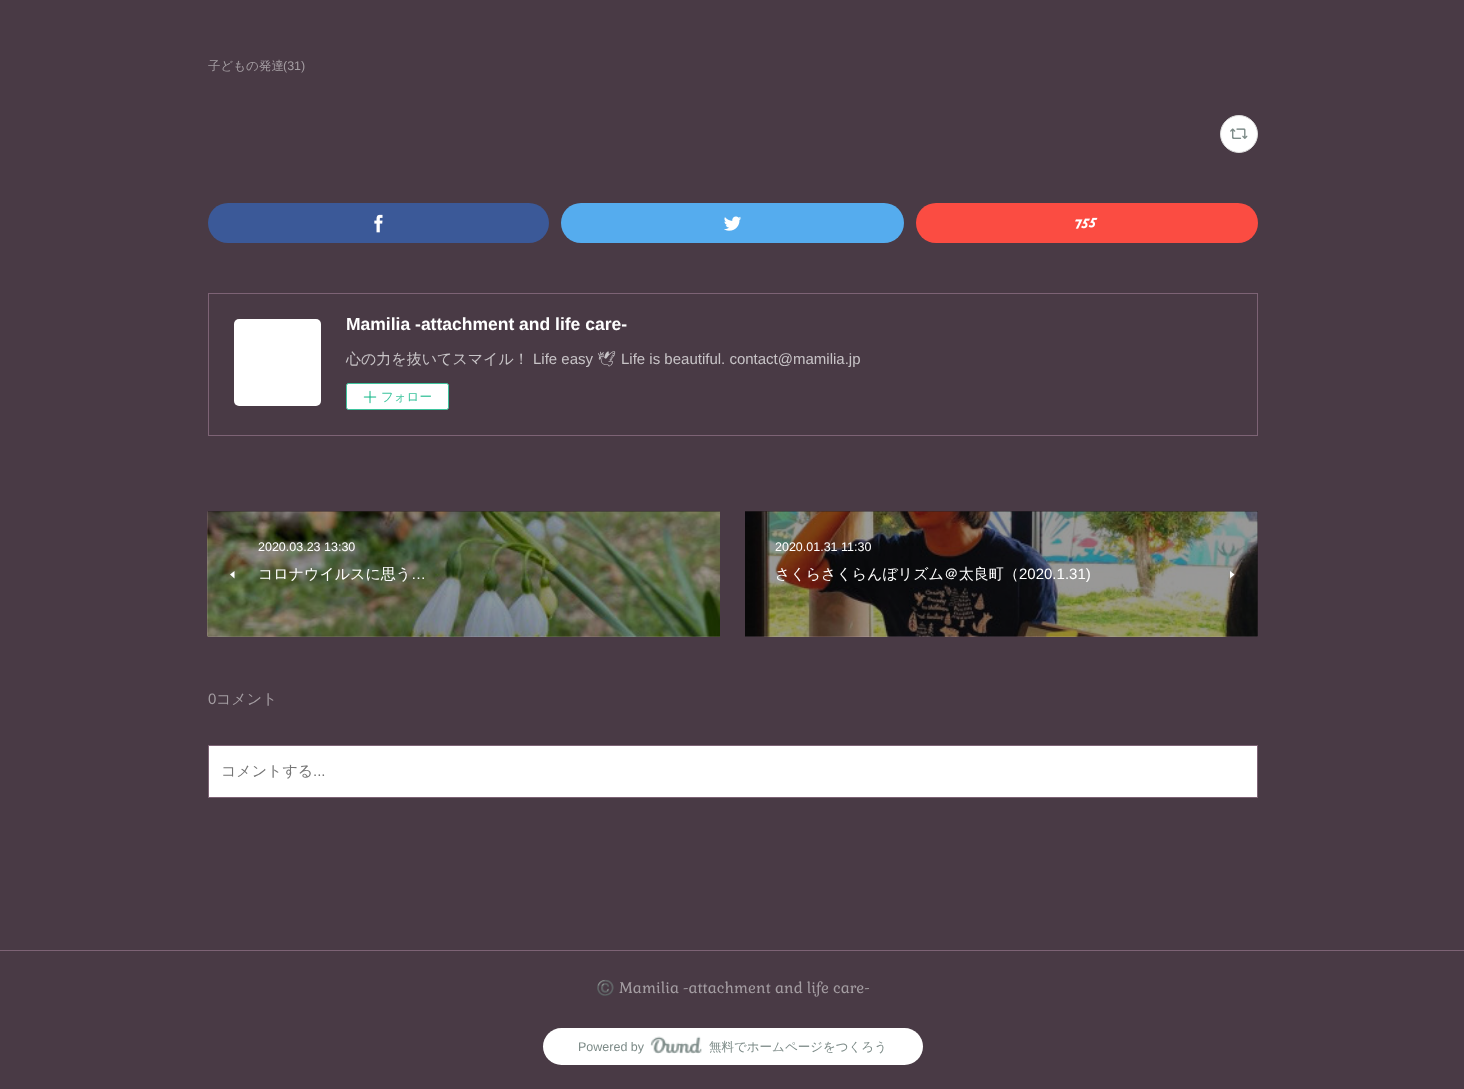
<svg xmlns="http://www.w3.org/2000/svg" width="1464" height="1089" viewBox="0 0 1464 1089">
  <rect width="100%" height="100%" fill="#493a45"/>
  <rect x="745" y="511" width="513" height="125" fill="#2c2329"/>
  <rect x="208" y="511" width="512" height="1" fill="#2c2329"/>
  <text x="208" y="70" font-family="WenQuanYi Zen Hei" font-size="12.5" font-weight="500" fill="#a49da2">子どもの発達</text>
  <text x="283" y="70" font-family="Liberation Sans" font-size="12.5" fill="#a49da2">(31)</text>
  <circle cx="1239" cy="134" r="18.5" fill="#ffffff" stroke="#dddddd"/>
  <image x="1230" y="128" width="18" height="11" href="img1.png"/>
  <rect x="208" y="203" width="341" height="40" rx="20" fill="#3b5998"/>
  <image x="374" y="214" width="9" height="19" href="img2.png"/>
  <rect x="561" y="203" width="343" height="40" rx="20" fill="#55acee"/>
  <image x="724" y="216" width="18" height="15" href="img3.png"/>
  <rect x="916" y="203" width="342" height="40" rx="20" fill="#fb4c42"/>
  <image x="1075" y="217" width="23" height="12" href="img4.png"/>
  <rect x="208.5" y="293.5" width="1049" height="142" fill="none" stroke="#7d6375"/>
  <rect x="234" y="319" width="87" height="87" rx="5" fill="#ffffff"/>
  <text x="346" y="330" font-family="Liberation Sans" font-size="17.5" font-weight="bold" fill="#ffffff">Mamilia -attachment and life care-</text>
  <text x="346" y="364" font-family="WenQuanYi Zen Hei" font-size="15" font-weight="500" fill="#c8c4c7">心の力を抜いてスマイル！</text>
  <text x="533" y="364" font-family="Liberation Sans" font-size="15" fill="#c8c4c7">Life easy</text>
  <text x="597" y="364" font-family="Noto Emoji" font-size="15" fill="#c8c4c7">🕊</text>
  <text x="621" y="364" font-family="Liberation Sans" font-size="15" fill="#c8c4c7">Life is beautiful. contact@mamilia.jp</text>
  <rect x="346.5" y="383.5" width="102" height="26" rx="2" fill="#ffffff" stroke="#3dc49d"/>
  <image x="363" y="390" width="14" height="14" href="img5.png"/>
  <text x="381" y="401" font-family="WenQuanYi Zen Hei" font-size="12.5" font-weight="500" fill="#3dc49d">フォロー</text>
  <image x="207" y="511" width="513" height="126" href="img6.png"/>
  <text x="258" y="551" font-family="Liberation Sans" font-size="12.5" fill="#ffffff">2020.03.23 13:30</text>
  <path d="M234.5 578.5V571L230 574.5Z" fill="#ffffff"/>
  <text x="258" y="579" font-family="WenQuanYi Zen Hei" font-size="15" font-weight="500" fill="#ffffff">コロナウイルスに思う</text>
  <text x="411" y="579" font-family="Liberation Sans" font-size="15" fill="#ffffff">…</text>
  <image x="745" y="511" width="513" height="126" href="img7.png"/>
  <text x="775" y="551" font-family="Liberation Sans" font-size="12.5" fill="#ffffff">2020.01.31 11:30</text>
  <text x="775" y="579" font-family="WenQuanYi Zen Hei" font-size="15" font-weight="500" fill="#ffffff">さくらさくらんぼリズム＠太良町（</text>
  <text x="1019" y="579" font-family="Liberation Sans" font-size="15" fill="#ffffff">2020.1.31)</text>
  <path d="M1230 571V578.5L1234.5 574.5Z" fill="#ffffff"/>
  <text x="208" y="704" font-family="Liberation Sans" font-size="15" fill="#a49da2">0</text>
  <text x="216" y="704" font-family="WenQuanYi Zen Hei" font-size="15" font-weight="500" fill="#a49da2">コメント</text>
  <rect x="208.5" y="745.5" width="1049" height="52" fill="#ffffff" stroke="#7d6375"/>
  <text x="221" y="776" font-family="WenQuanYi Zen Hei" font-size="15" font-weight="500" fill="#757575">コメントする</text>
  <text x="313" y="776" font-family="Liberation Sans" font-size="15" fill="#757575">...</text>
  <rect x="0" y="950" width="1464" height="1" fill="#7d6375"/>
  <text x="596" y="993" font-family="Noto Color Emoji" font-size="15" fill="#a49da2">©️</text>
  <text x="619" y="993" font-family="Gabriela" font-size="15" fill="#a49da2">Mamilia -attachment and life care-</text>
  <rect x="543" y="1028" width="380" height="37" rx="18.5" fill="#ffffff"/>
  <text x="578" y="1051" font-family="Liberation Sans" font-size="12.5" fill="#7d8b88">Powered by</text>
  <image x="650" y="1036" width="52" height="18" href="img8.png"/>
  <text x="709" y="1051" font-family="WenQuanYi Zen Hei" font-size="12.5" font-weight="500" fill="#7d8b88">無料でホームページをつくろう</text>
</svg>
